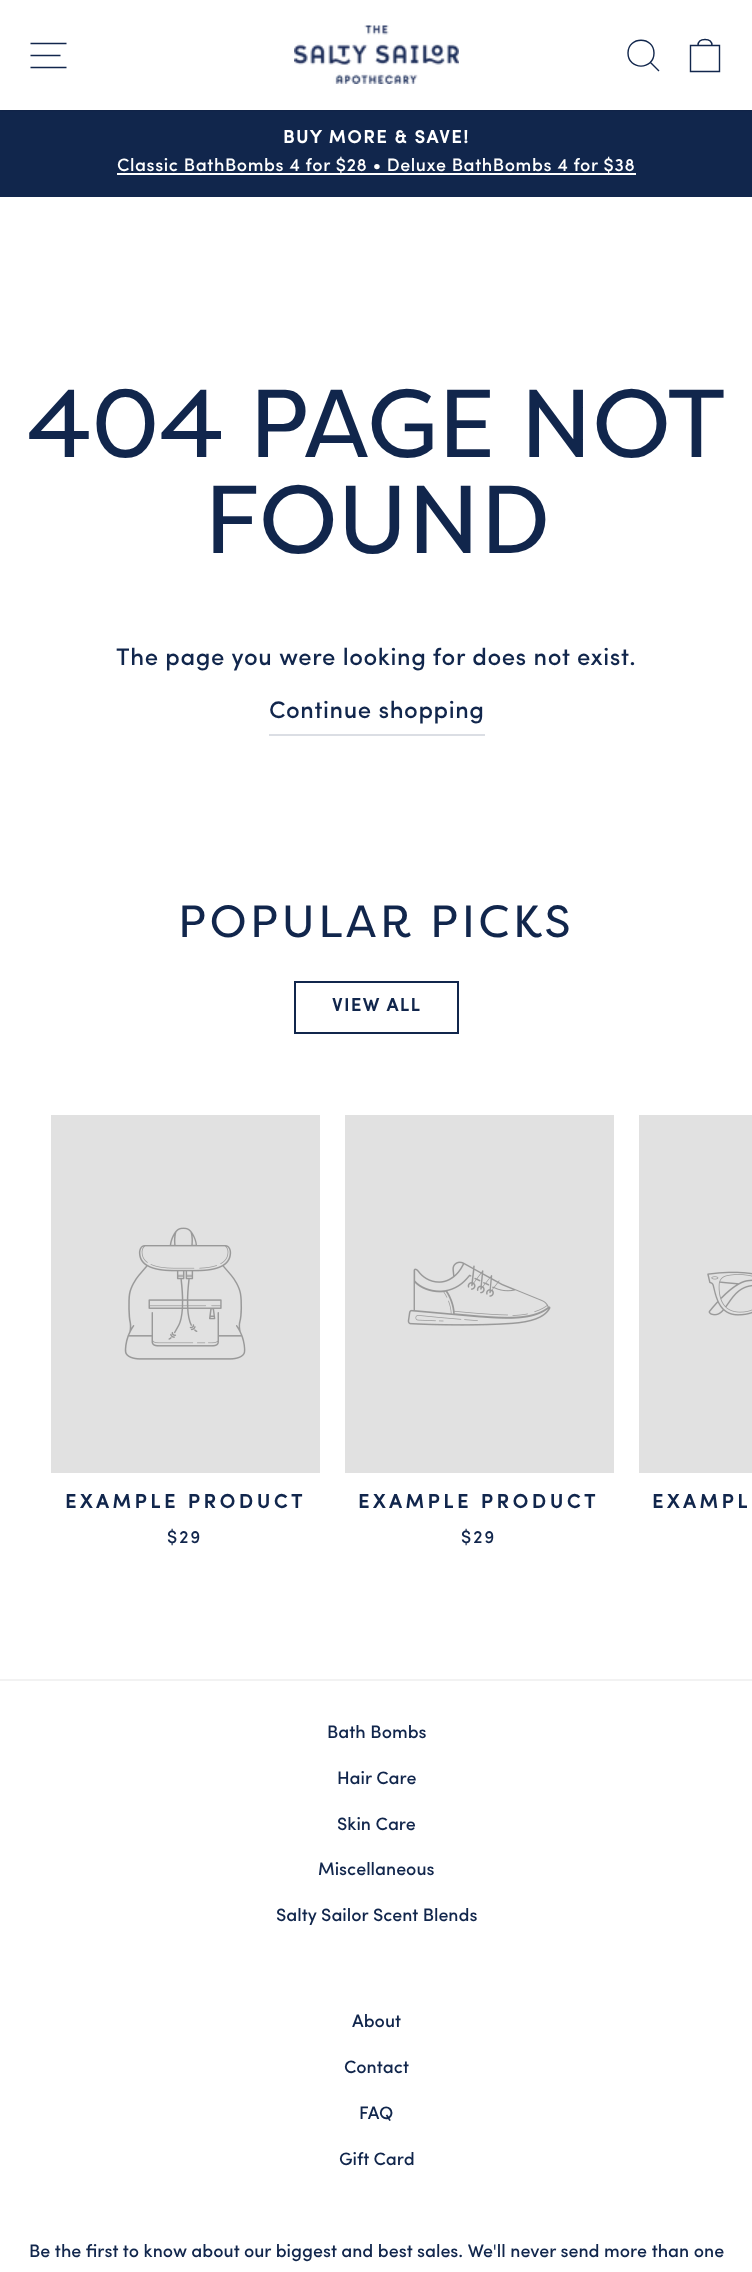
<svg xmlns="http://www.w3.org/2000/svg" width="752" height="2272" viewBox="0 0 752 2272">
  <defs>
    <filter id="blur1" x="-50%" y="-200%" width="200%" height="500%"><feGaussianBlur stdDeviation="1"/></filter>
  </defs>
  <rect width="100%" height="100%" fill="#ffffff"/>
  <rect x="0" y="110" width="752" height="87" fill="#11264c"/>
  <rect x="0" y="0" width="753" height="110" fill="#000000" fill-opacity="0.2" filter="url(#blur1)"/>
  <rect x="0" y="0" width="752" height="110" fill="#ffffff"/>
  <path d="M30.5 43.5H66.5M30.5 55.5H60.5M30.5 67.5H66.5" fill="none" stroke="#11264c" stroke-width="1.4"/>
  <image x="294" y="25" width="165" height="59" href="img1.png"/>
  <path d="M654 53C654 70.5 628 70.5 628 53C628 36 654 36 654 53ZM659 71L650.5 62.5" fill="none" stroke="#11264c" stroke-width="1.4"/>
  <path d="M690.5 45.5H719.5V71.5H690.5ZM698 45.5C698 40.5 701 39.5 705 39.5C709 39.5 712 40.5 712 45.5" fill="none" stroke="#11264c" stroke-width="1.4"/>
  <text x="283" y="143" font-family="Sofia" font-size="18" font-weight="bold" letter-spacing="1.75" fill="#ffffff">BUY MORE &amp; SAVE!</text>
  <rect x="117" y="173" width="519" height="2" fill="#ffffff"/>
  <text x="117" y="171" font-family="Sofia" font-size="18" font-weight="500" letter-spacing="0.6" fill="#ffffff">Classic BathBombs 4 for $28 • Deluxe BathBombs 4 for $38</text>
  <text x="27" y="457" font-family="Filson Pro" font-size="96" fill="#11264c">404 PAGE NOT</text>
  <text x="204" y="553" font-family="Filson Pro" font-size="96" fill="#11264c">FOUND</text>
  <text x="116" y="665" font-family="Sofia" font-size="24" font-weight="500" letter-spacing="0.6" fill="#11264c">The page you were looking for does not exist.</text>
  <rect x="269" y="734" width="216" height="2" fill="#dbdee4"/>
  <text x="269" y="718" font-family="Sofia" font-size="24" font-weight="500" letter-spacing="0.6" fill="#11264c">Continue shopping</text>
  <text x="178" y="937" font-family="Filson Pro" font-size="45" letter-spacing="3.6" fill="#11264c">POPULAR PICKS</text>
  <rect x="295" y="982" width="163" height="51" fill="none" stroke="#11264c" stroke-width="2"/>
  <text x="332" y="1011" font-family="Sofia" font-size="18" font-weight="bold" letter-spacing="1.75" fill="#11264c">VIEW ALL</text>
  <rect x="51" y="1115" width="269" height="358" fill="#e1e1e1"/>
  <image x="124" y="1227" width="122" height="133" href="img2.png"/>
  <text x="65" y="1508" font-family="Sofia" font-size="19.5" font-weight="bold" letter-spacing="3.9" fill="#11264c">EXAMPLE PRODUCT</text>
  <text x="167" y="1543" font-family="Sofia" font-size="18" font-weight="500" letter-spacing="1.75" fill="#11264c">$29</text>
  <rect x="345" y="1115" width="269" height="358" fill="#e1e1e1"/>
  <image x="407" y="1261" width="144" height="65" href="img3.png"/>
  <text x="358" y="1508" font-family="Sofia" font-size="19.5" font-weight="bold" letter-spacing="3.9" fill="#11264c">EXAMPLE PRODUCT</text>
  <text x="461" y="1543" font-family="Sofia" font-size="18" font-weight="500" letter-spacing="1.75" fill="#11264c">$29</text>
  <rect x="639" y="1115" width="113" height="358" fill="#e1e1e1"/>
  <image x="707" y="1271" width="45" height="45" href="img4.png"/>
  <text x="652" y="1508" font-family="Sofia" font-size="19.5" font-weight="bold" letter-spacing="3.9" fill="#11264c">EXAMPL</text>
  <rect x="0" y="1679" width="752" height="2" fill="#f2f2f2"/>
  <text x="327" y="1738" font-family="Sofia" font-size="18" font-weight="500" fill="#11264c">Bath Bombs</text>
  <text x="337" y="1784" font-family="Sofia" font-size="18" font-weight="500" fill="#11264c">Hair Care</text>
  <text x="337" y="1830" font-family="Sofia" font-size="18" font-weight="500" fill="#11264c">Skin Care</text>
  <text x="318" y="1875" font-family="Sofia" font-size="18" font-weight="500" fill="#11264c">Miscellaneous</text>
  <text x="276" y="1921" font-family="Sofia" font-size="18" font-weight="500" fill="#11264c">Salty Sailor Scent Blends</text>
  <text x="352" y="2027" font-family="Sofia" font-size="18" font-weight="500" fill="#11264c">About</text>
  <text x="344" y="2073" font-family="Sofia" font-size="18" font-weight="500" fill="#11264c">Contact</text>
  <text x="359" y="2119" font-family="Sofia" font-size="18" font-weight="500" fill="#11264c">FAQ</text>
  <text x="339" y="2165" font-family="Sofia" font-size="18" font-weight="500" fill="#11264c">Gift Card</text>
  <text x="29" y="2257" font-family="Sofia" font-size="18" font-weight="500" fill="#11264c">Be the first to know about our biggest and best sales. We'll never send more than one</text>
</svg>
